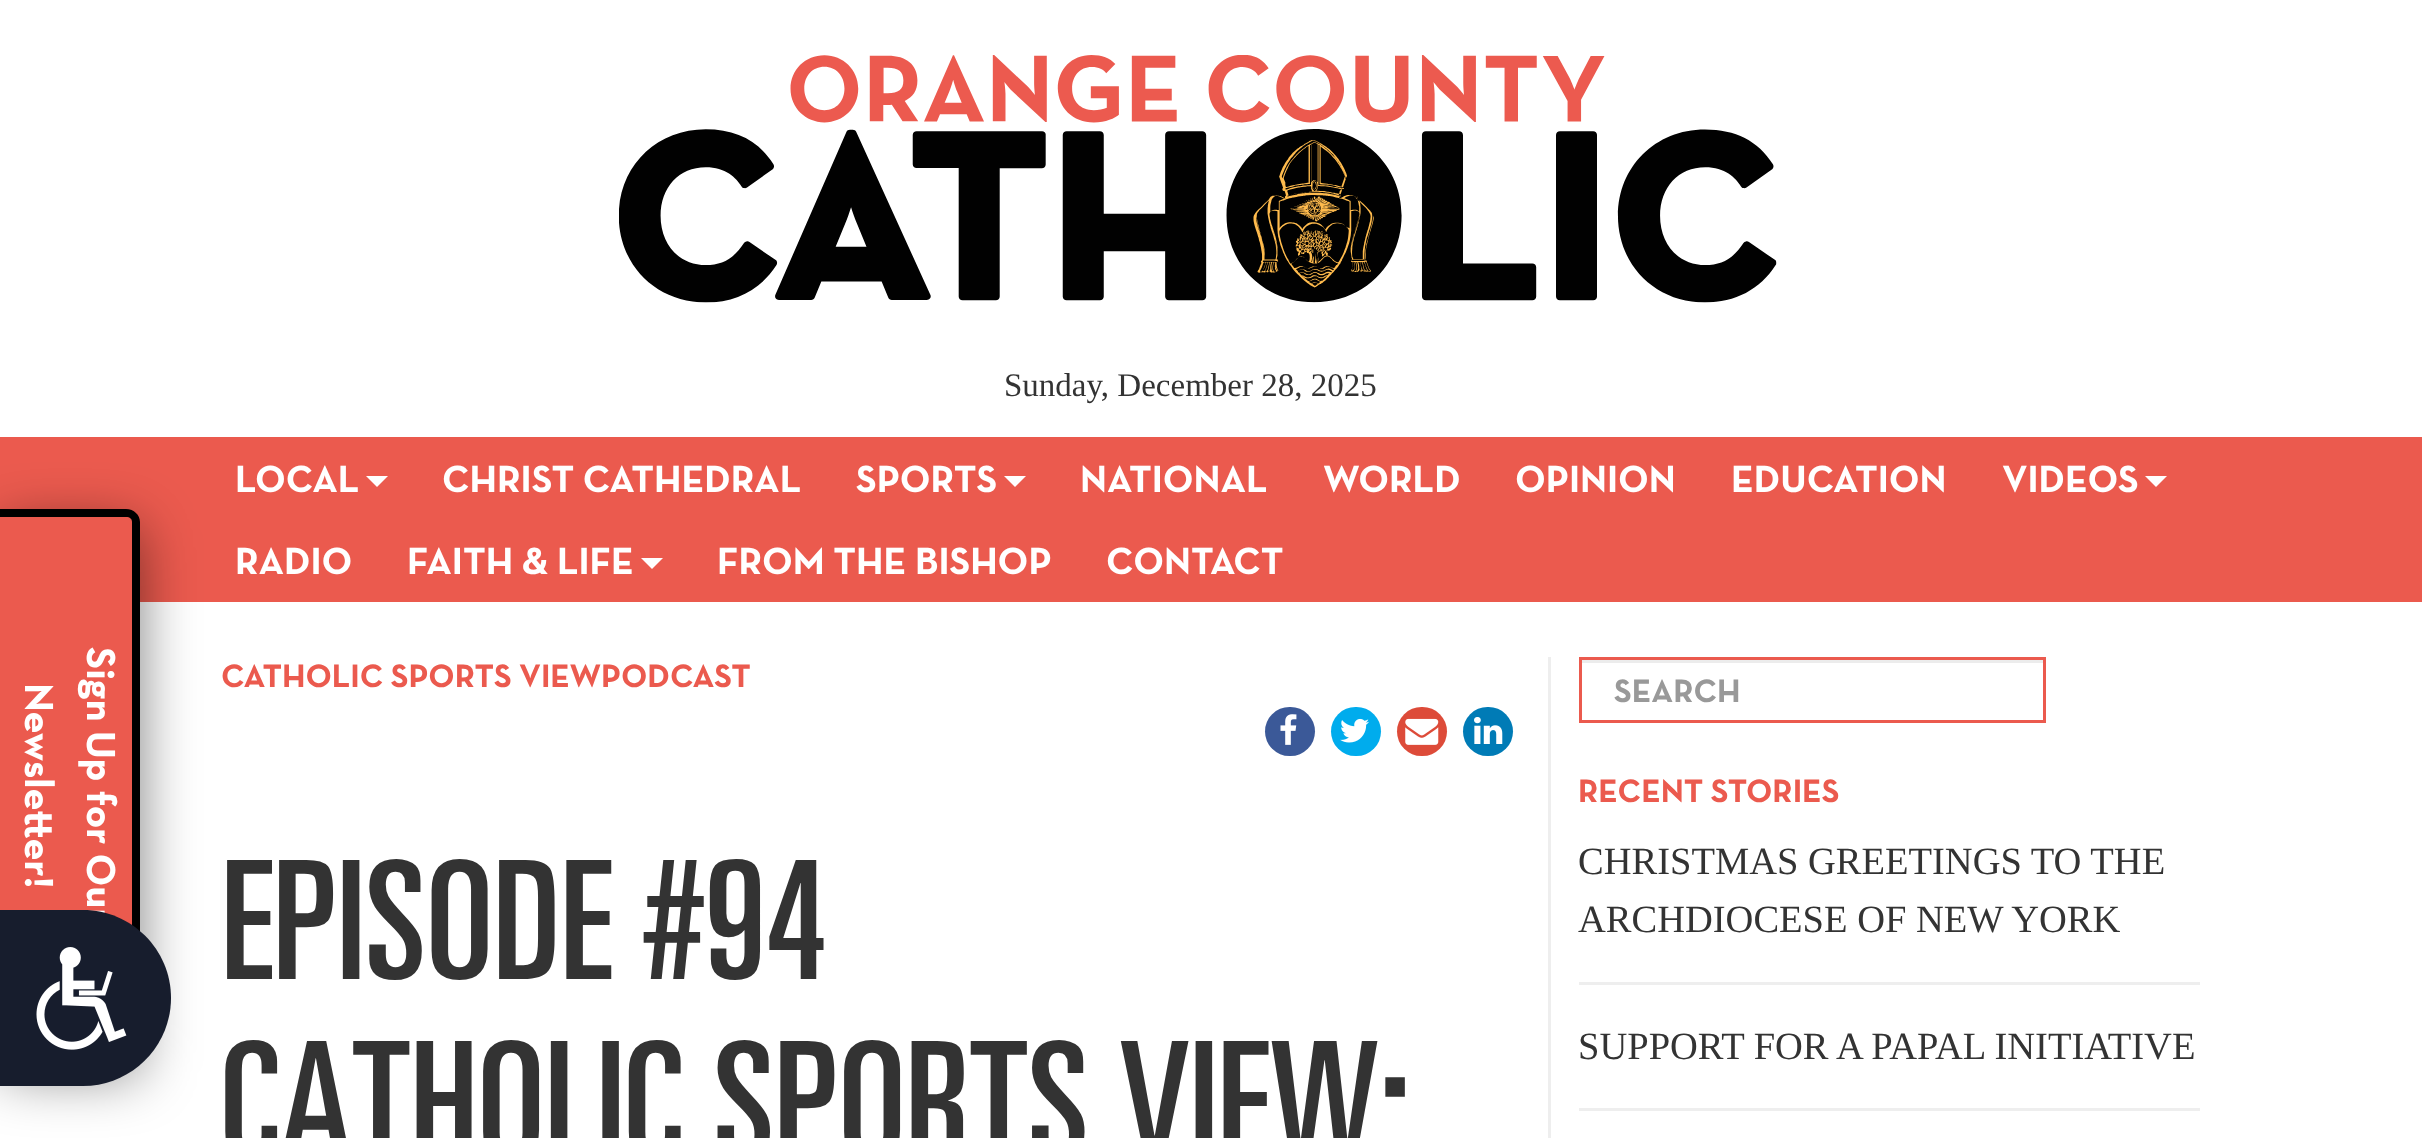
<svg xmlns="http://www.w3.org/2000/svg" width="2422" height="1138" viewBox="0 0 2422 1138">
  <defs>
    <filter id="blur1" x="-50%" y="-200%" width="200%" height="500%"><feGaussianBlur stdDeviation="27.5"/></filter>
  </defs>
  <rect width="100%" height="100%" fill="#ffffff"/>
  <image x="619" y="55" width="1158" height="248" href="img1.png"/>
  <text x="1004" y="396" font-family="Liberation Serif" font-size="33" fill="#333333">Sunday, December 28, 2025</text>
  <rect x="0" y="437" width="2422" height="165" fill="#eb5a4e"/>
  <text x="235" y="492" font-family="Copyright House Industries" font-size="38.5" font-weight="bold" fill="#ffffff">LOCAL</text>
  <path d="M366 476H388L377 487Z" fill="#ffffff"/>
  <text x="442" y="492" font-family="Copyright House Industries" font-size="38.5" font-weight="bold" fill="#ffffff">CHRIST CATHEDRAL</text>
  <text x="856" y="492" font-family="Copyright House Industries" font-size="38.5" font-weight="bold" fill="#ffffff">SPORTS</text>
  <path d="M1004 476H1026L1015 487Z" fill="#ffffff"/>
  <text x="1080" y="492" font-family="Copyright House Industries" font-size="38.5" font-weight="bold" fill="#ffffff">NATIONAL</text>
  <text x="1323" y="492" font-family="Copyright House Industries" font-size="38.5" font-weight="bold" fill="#ffffff">WORLD</text>
  <text x="1515" y="492" font-family="Copyright House Industries" font-size="38.5" font-weight="bold" fill="#ffffff">OPINION</text>
  <text x="1731" y="492" font-family="Copyright House Industries" font-size="38.5" font-weight="bold" fill="#ffffff">EDUCATION</text>
  <text x="2002" y="492" font-family="Copyright House Industries" font-size="38.5" font-weight="bold" fill="#ffffff">VIDEOS</text>
  <path d="M2145 476H2167L2156 487Z" fill="#ffffff"/>
  <text x="235" y="574" font-family="Copyright House Industries" font-size="38.5" font-weight="bold" fill="#ffffff">RADIO</text>
  <text x="407" y="574" font-family="Copyright House Industries" font-size="38.5" font-weight="bold" fill="#ffffff">FAITH &amp; LIFE</text>
  <path d="M641 558H663L652 569Z" fill="#ffffff"/>
  <text x="717" y="574" font-family="Copyright House Industries" font-size="38.5" font-weight="bold" fill="#ffffff">FROM THE BISHOP</text>
  <text x="1106" y="574" font-family="Copyright House Industries" font-size="38.5" font-weight="bold" fill="#ffffff">CONTACT</text>
  <rect x="0" y="525" width="140" height="550" rx="14" fill="#000000" fill-opacity="0.5" filter="url(#blur1)"/>
  <path d="M0 509H126C133.5 509 140 515.5 140 523V1045C140 1052.5 133.5 1059 126 1059H0Z" fill="#eb5a4e"/>
  <path d="M0 509H126C134 509 140 515 140 522V1045C140 1053 134 1059 126 1059H0ZM0 517H126C130 517 132 519 132 522V1045C132 1048 130 1050 126 1050H0Z" fill="#000000" fill-rule="evenodd"/>
  <text x="25" y="683" transform="rotate(90 25 683)" font-family="Copyright House Industries" font-size="41.25" font-weight="bold" fill="#ffffff">Newsletter!</text>
  <text x="87" y="647" transform="rotate(90 87 647)" font-family="Copyright House Industries" font-size="41.25" font-weight="bold" fill="#ffffff">Sign Up for Our</text>
  <rect x="1548" y="657" width="3" height="481" fill="#eeeeee"/>
  <text x="221" y="687" font-family="Copyright House Industries" font-size="33" font-weight="bold" fill="#eb5a4e">CATHOLIC SPORTS VIEWPODCAST</text>
  <rect x="1265" y="707" width="50" height="49" rx="24.5" fill="#3b5998"/>
  <image x="1280" y="714" width="17" height="31" href="img2.png"/>
  <rect x="1331" y="707" width="50" height="49" rx="24.5" fill="#00aced"/>
  <image x="1340" y="718" width="29" height="25" href="img3.png"/>
  <rect x="1397" y="707" width="50" height="49" rx="24.5" fill="#dd4b39"/>
  <image x="1405" y="718" width="34" height="27" href="img4.png"/>
  <rect x="1463" y="707" width="50" height="49" rx="24.5" fill="#007bb6"/>
  <image x="1474" y="717" width="29" height="27" href="img5.png"/>
  <text x="221" y="979" font-family="univers" font-size="165" fill="#333333">EPISODE #94</text>
  <text x="221" y="1160" font-family="univers" font-size="165" fill="#333333">CATHOLIC SPORTS VIEW:</text>
  <rect x="1581" y="660" width="462" height="3" fill="#ececec"/>
  <rect x="1580.5" y="658.5" width="464" height="63" fill="none" stroke="#eb5a4e" stroke-width="3"/>
  <text x="1614" y="702" font-family="Copyright House Industries" font-size="33" font-weight="bold" fill="#999999">SEARCH</text>
  <text x="1578" y="802" font-family="Copyright House Industries" font-size="33" font-weight="bold" fill="#eb5a4e">RECENT STORIES</text>
  <rect x="1579" y="982" width="621" height="3" fill="#eeeeee"/>
  <text x="1578" y="874" font-family="Liberation Serif" font-size="38.5" fill="#333333">CHRISTMAS GREETINGS TO THE</text>
  <text x="1578" y="932" font-family="Liberation Serif" font-size="38.5" fill="#333333">ARCHDIOCESE OF NEW YORK</text>
  <rect x="1579" y="1108" width="621" height="3" fill="#eeeeee"/>
  <text x="1578" y="1059" font-family="Liberation Serif" font-size="38.5" fill="#333333">SUPPORT FOR A PAPAL INITIATIVE</text>
  <path d="M0 910H83C131.5 910 171 949.5 171 998C171 1046.5 131.5 1086 83 1086H0Z" fill="#171d2d"/>
  <image x="36" y="947" width="91" height="103" href="img6.png"/>
</svg>
